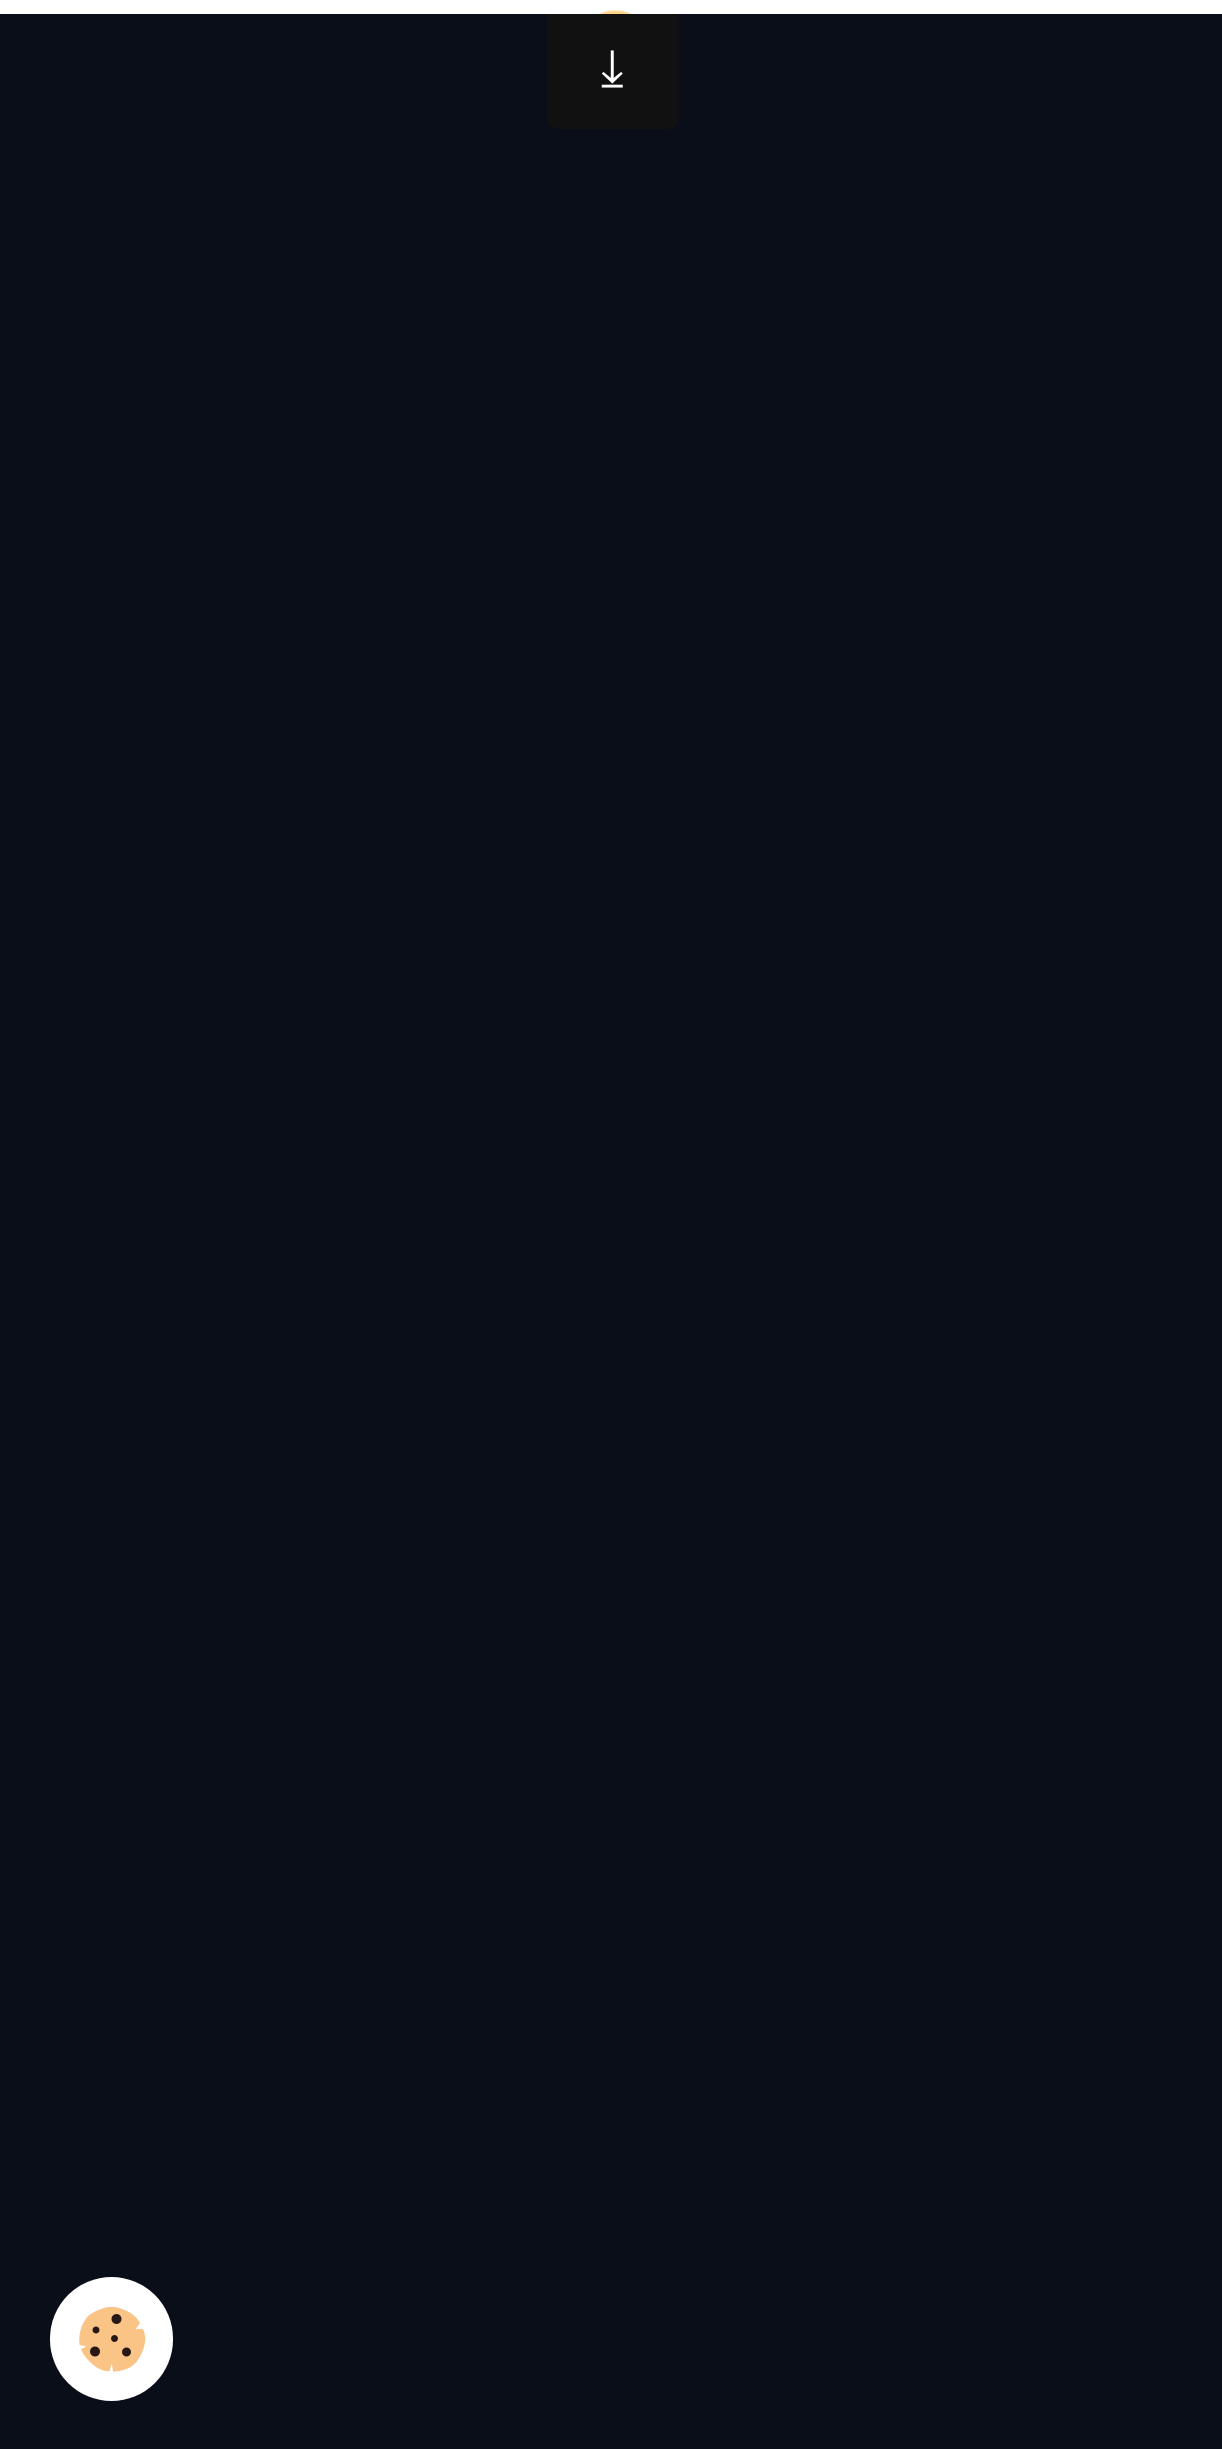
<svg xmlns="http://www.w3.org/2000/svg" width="1222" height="2449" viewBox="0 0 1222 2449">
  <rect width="100%" height="100%" fill="#0a0e19"/>
  <rect x="0" y="0" width="1222" height="14" fill="#ffffff"/>
  <image x="598" y="10" width="35" height="4" href="img1.png"/>
  <path d="M547 14H679V118C679 124 674 129 668 129H558C552 129 547 124 547 118Z" fill="#111111"/>
  <text x="601" y="85" font-family="FreeSerif" font-size="51" fill="#ffffff">⤓</text>
  <rect x="50" y="2277" width="123" height="124" rx="61.5" fill="#ffffff"/>
  <image x="79" y="2306" width="67" height="66" href="img2.png"/>
</svg>
